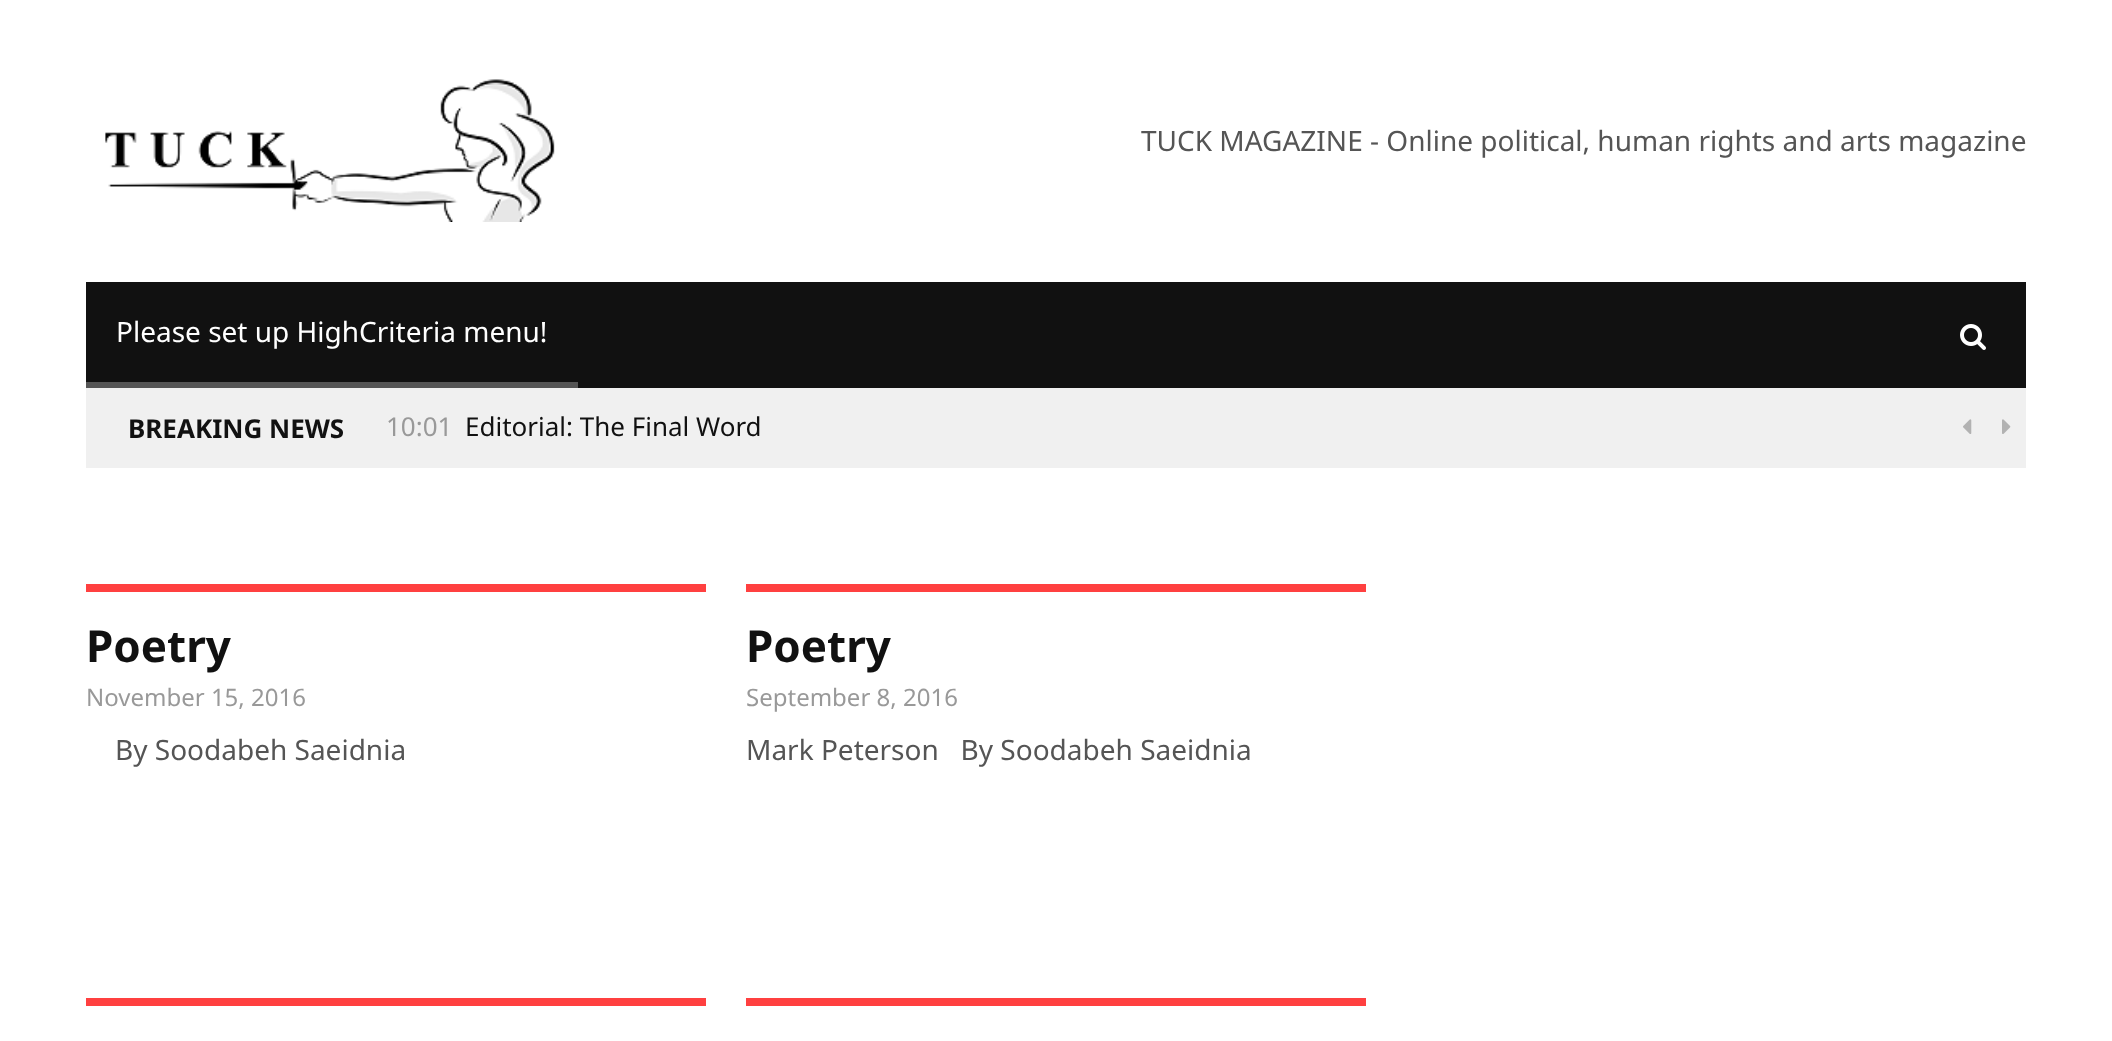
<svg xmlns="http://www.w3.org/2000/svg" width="2112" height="1041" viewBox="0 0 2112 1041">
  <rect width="100%" height="100%" fill="#ffffff"/>
  <image x="105" y="79" width="450" height="143" href="img1.png"/>
  <text x="1141" y="151" font-family="Noto Sans" font-size="28" fill="#555555">TUCK MAGAZINE - Online political, human rights and arts magazine</text>
  <rect x="86" y="282" width="1940" height="106" fill="#111111"/>
  <rect x="86" y="382" width="492" height="6" fill="#555555"/>
  <text x="116" y="342" font-family="Noto Sans" font-size="28" fill="#ffffff">Please set up HighCriteria menu!</text>
  <image x="1960" y="324" width="26" height="26" href="img2.png"/>
  <rect x="86" y="388" width="1940" height="80" fill="#f0f0f0"/>
  <text x="128" y="438" font-family="Noto Sans" font-size="26" font-weight="bold" fill="#111111">BREAKING NEWS</text>
  <text x="386" y="436" font-family="Noto Sans" font-size="26" fill="#999999">10:01</text>
  <text x="465" y="436" font-family="Noto Sans" font-size="26" fill="#111111">Editorial: The Final Word</text>
  <image x="1963" y="419" width="9" height="15" href="img3.png"/>
  <image x="2002" y="419" width="9" height="15" href="img4.png"/>
  <rect x="86" y="584" width="620" height="8" fill="#ff4040"/>
  <text x="86" y="662" font-family="Noto Sans" font-size="44" font-weight="bold" fill="#111111">Poetry</text>
  <text x="86" y="706" font-family="Noto Sans" font-size="24" fill="#999999">November 15, 2016</text>
  <text x="115" y="760" font-family="Noto Sans" font-size="28" fill="#555555">By Soodabeh Saeidnia</text>
  <rect x="746" y="584" width="620" height="8" fill="#ff4040"/>
  <text x="746" y="662" font-family="Noto Sans" font-size="44" font-weight="bold" fill="#111111">Poetry</text>
  <text x="746" y="706" font-family="Noto Sans" font-size="24" fill="#999999">September 8, 2016</text>
  <text x="746" y="760" font-family="Noto Sans" font-size="28" fill="#555555" xml:space="preserve">Mark Peterson   By Soodabeh Saeidnia</text>
  <rect x="86" y="998" width="620" height="8" fill="#ff4040"/>
  <rect x="746" y="998" width="620" height="8" fill="#ff4040"/>
</svg>
